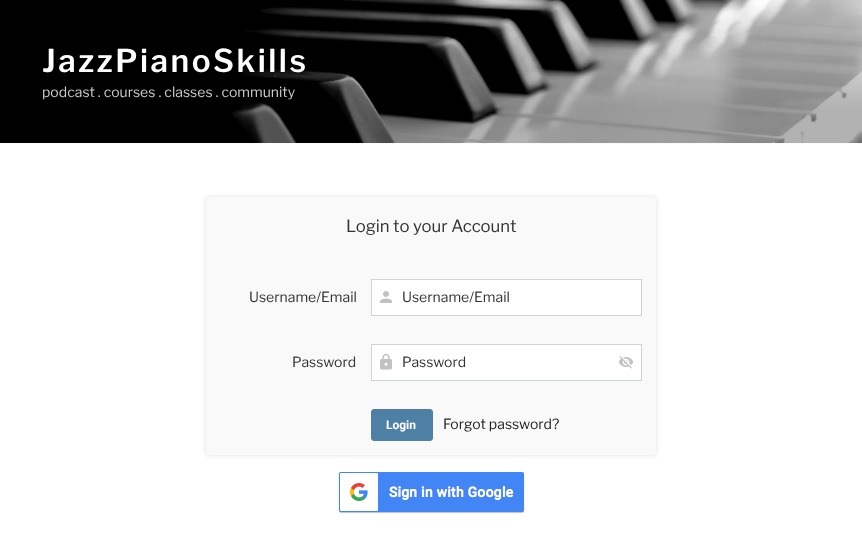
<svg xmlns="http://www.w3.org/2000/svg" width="862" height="536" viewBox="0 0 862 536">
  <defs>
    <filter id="blur1" x="-50%" y="-200%" width="200%" height="500%"><feGaussianBlur stdDeviation="2.5"/></filter>
  </defs>
  <rect width="100%" height="100%" fill="#fafafa"/>
  <image x="0" y="0" width="862" height="143" href="img1.png"/>
  <text x="42" y="72" font-family="Libre Franklin" font-size="31.5" font-weight="600" letter-spacing="2.5" fill="#ffffff">JazzPianoSkills</text>
  <text x="42" y="97" font-family="Libre Franklin" font-size="14" fill="#cccccc">podcast . courses . classes . community</text>
  <rect x="0" y="144" width="862" height="392" fill="#ffffff"/>
  <rect x="206" y="197" width="450" height="258" rx="3" fill="#000000" fill-opacity="0.13" filter="url(#blur1)"/>
  <path d="M209 197H653C654.5 197 656 198.5 656 200V265H206V200C206 198.5 207.5 197 209 197Z" fill="#f9f9f9"/>
  <text x="346" y="232" font-family="Libre Franklin" font-size="16.75" fill="#333333">Login to your Account</text>
  <rect x="206" y="265" width="450" height="130" fill="#f9f9f9"/>
  <text x="249" y="302" font-family="Libre Franklin" font-size="14" fill="#333333">Username/Email</text>
  <rect x="372" y="280" width="269" height="35" fill="#ffffff"/>
  <image x="380" y="291" width="12" height="12" href="img2.png"/>
  <rect x="371.5" y="279.5" width="270" height="36" fill="none" stroke="#ced4da"/>
  <text x="402" y="302" font-family="Libre Franklin" font-size="14" fill="#333333">Username/Email</text>
  <text x="292" y="367" font-family="Libre Franklin" font-size="14" fill="#333333">Password</text>
  <rect x="372" y="345" width="269" height="35" fill="#ffffff"/>
  <image x="380" y="353" width="12" height="17" href="img3.png"/>
  <rect x="371.5" y="344.5" width="270" height="36" fill="none" stroke="#ced4da"/>
  <text x="402" y="367" font-family="Libre Franklin" font-size="14" fill="#333333">Password</text>
  <image x="618" y="356" width="16" height="13" href="img4.png"/>
  <path d="M206 395H656V452C656 453.5 654.5 455 653 455H209C207.5 455 206 453.5 206 452Z" fill="#f9f9f9"/>
  <rect x="371.5" y="409.5" width="61" height="31" rx="2.5" fill="#4e80a6" stroke="#4e80a6"/>
  <text x="386" y="429" font-family="Roboto" font-size="12" font-weight="bold" fill="#ffffff">Login</text>
  <text x="443" y="429" font-family="Libre Franklin" font-size="14" fill="#222222">Forgot password?</text>
  <image x="338" y="472" width="187" height="42" href="img5.png"/>
</svg>
